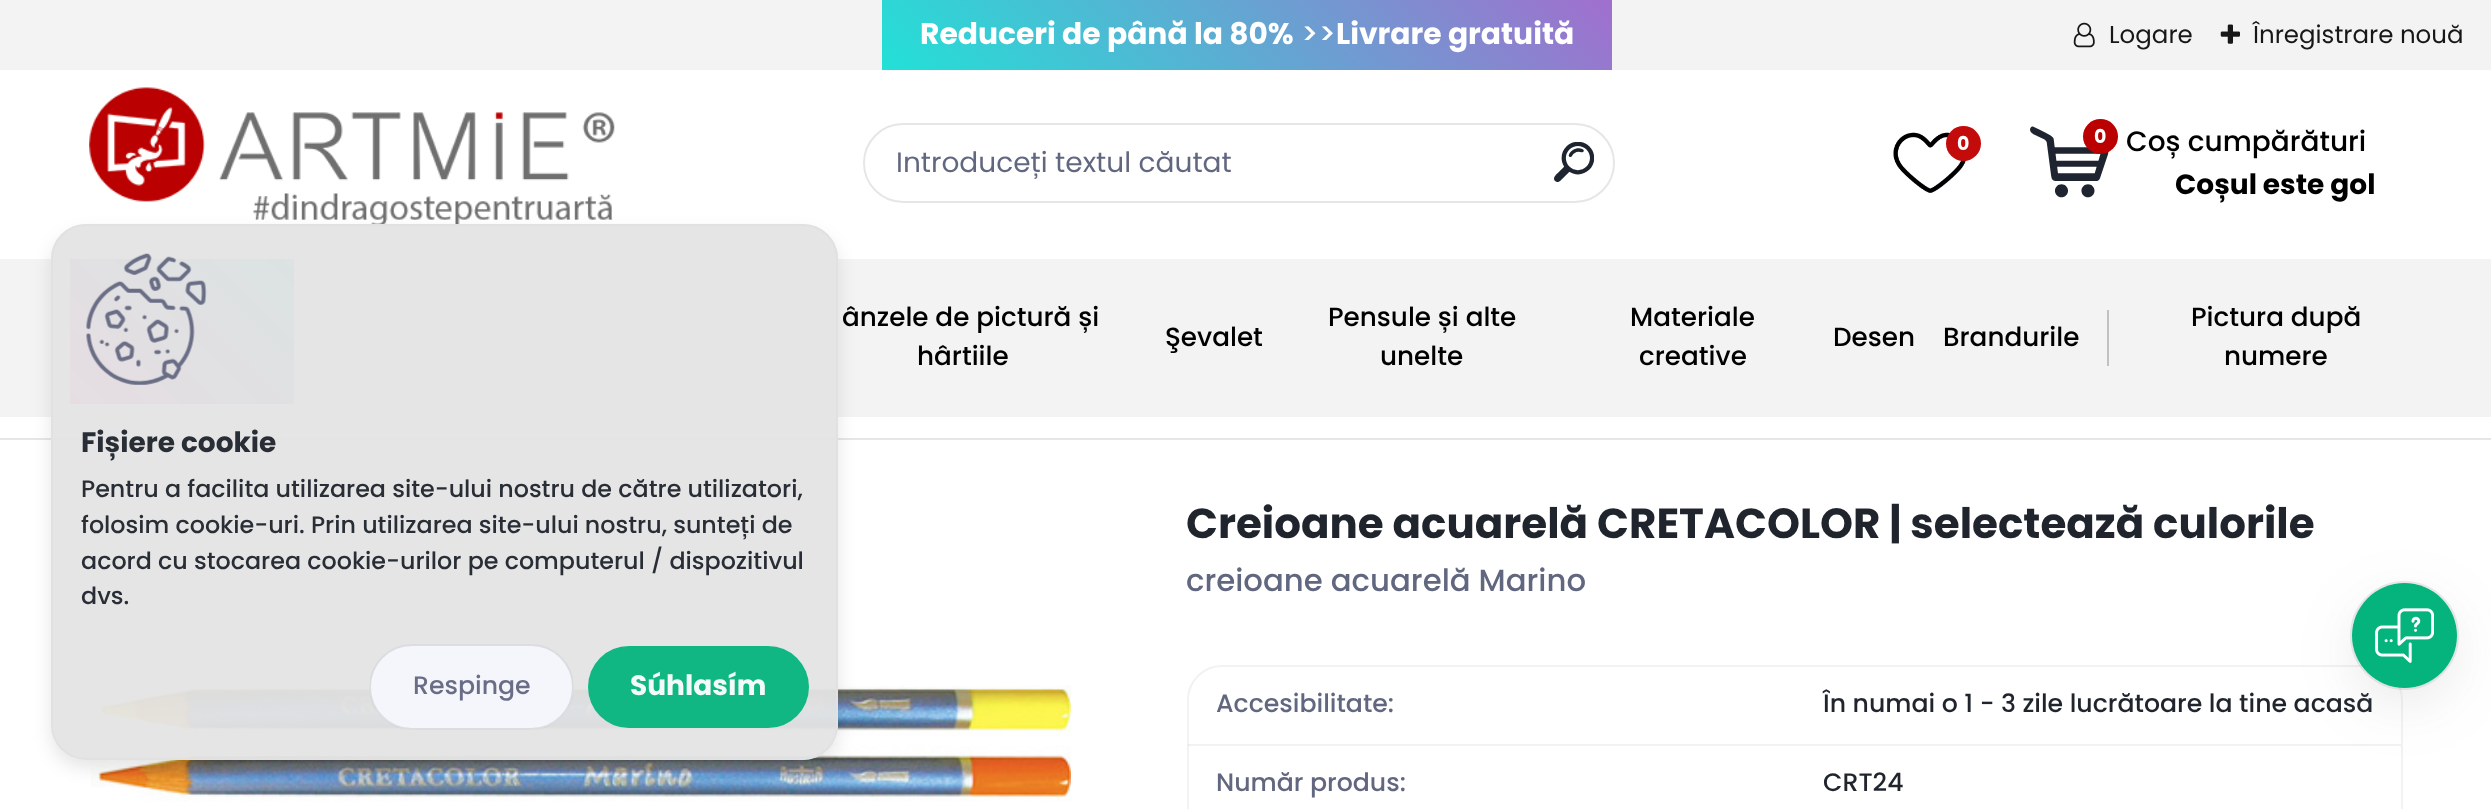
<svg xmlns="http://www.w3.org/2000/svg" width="2491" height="809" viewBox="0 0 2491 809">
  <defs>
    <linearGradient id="g1" gradientUnits="userSpaceOnUse" x1="90" y1="424" x2="274" y2="239"><stop offset="0" stop-color="#ff6ac1"/><stop offset="1" stop-color="#4ecdc4"/></linearGradient>
    <clipPath id="clip1"><path d="M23 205H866V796H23ZM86 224H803C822.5 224 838 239.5 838 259V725C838 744.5 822.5 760 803 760H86C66.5 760 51 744.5 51 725V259C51 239.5 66.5 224 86 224Z" clip-rule="evenodd"/></clipPath>
    <filter id="blur1" x="-50%" y="-200%" width="200%" height="500%"><feGaussianBlur stdDeviation="9"/></filter>
    <linearGradient id="g2" gradientUnits="userSpaceOnUse" x1="1542" y1="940" x2="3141" y2="-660"><stop offset="0" stop-color="#00ffd9"/><stop offset="0.5" stop-color="#ff1ac7"/><stop offset="1" stop-color="#00ffd9"/></linearGradient>
    <filter id="blur2" x="-50%" y="-200%" width="200%" height="500%"><feGaussianBlur stdDeviation="26"/></filter>
  </defs>
  <rect width="100%" height="100%" fill="#ffffff"/>
  <path d="M279 403.5H280.5L264 420H262.5Z" fill="#373737" fill-opacity="0.3"/>
  <path d="M524 403.5H526L509.5 420H507.5Z" fill="#373737" fill-opacity="0.3"/>
  <rect x="0" y="259" width="2491" height="158" fill="#f3f3f3"/>
  <rect x="70" y="259" width="224" height="145" fill="url(#g1)"/>
  <image x="89" y="87" width="526" height="140" href="img4.png"/>
  <rect x="0" y="438" width="2491" height="2" fill="#e6e6e6"/>
  <image x="91" y="685" width="980" height="117" href="img8.png"/>
  <g clip-path="url(#clip1)">
    <rect x="51" y="233" width="787" height="535" rx="35" fill="#000000" fill-opacity="0.1" filter="url(#blur1)"/>
  </g>
  <rect x="51" y="224" width="787" height="536" rx="35" fill="#e4e4e4" fill-opacity="0.95"/>
  <rect x="52" y="225" width="785" height="534" rx="34" fill="none" stroke="#e0e0e0" stroke-opacity="0.95" stroke-width="2"/>
  <image x="86" y="253" width="121" height="132" href="img1.png"/>
  <text x="81" y="452" font-family="Poppins" font-size="28" font-weight="bold" fill="#292e36">Fișiere cookie</text>
  <text x="81" y="497" font-family="Poppins" font-size="23.8" font-weight="500" fill="#292e36">Pentru a facilita utilizarea site-ului nostru de către utilizatori,</text>
  <text x="81" y="533" font-family="Poppins" font-size="23.8" font-weight="500" fill="#292e36">folosim cookie-uri. Prin utilizarea site-ului nostru, sunteți de</text>
  <text x="81" y="569" font-family="Poppins" font-size="23.8" font-weight="500" fill="#292e36">acord cu stocarea cookie-urilor pe computerul / dispozitivul</text>
  <text x="81" y="604" font-family="Poppins" font-size="23.8" font-weight="500" fill="#292e36">dvs.</text>
  <rect x="369" y="644" width="205" height="86" rx="43" fill="#f6f7fc" fill-opacity="0.95"/>
  <rect x="370" y="645" width="203" height="84" rx="42" fill="none" stroke="#000000" stroke-opacity="0.1" stroke-width="2"/>
  <text x="413" y="694" font-family="Poppins" font-size="25.2" font-weight="500" fill="#696e86">Respinge</text>
  <rect x="588" y="646" width="221" height="82" rx="41" fill="#05b47c" fill-opacity="0.95"/>
  <text x="630" y="695" font-family="Poppins" font-size="28" font-weight="bold" fill="#f3fbf9">Súhlasím</text>
  <rect x="0" y="0" width="2491" height="70" fill="#f3f3f3"/>
  <rect x="882" y="0" width="730" height="70" fill="url(#g2)"/>
  <text x="920" y="44" font-family="Poppins" font-size="29.75" font-weight="bold" fill="#ffffff">Reduceri de până la 80%</text>
  <text x="1301" y="44" font-family="Poppins" font-size="29.75" font-weight="500" fill="#ffffff">&gt;&gt;</text>
  <text x="1336" y="44" font-family="Poppins" font-size="29.75" font-weight="bold" fill="#ffffff">Livrare gratuită</text>
  <text x="842" y="326" font-family="Poppins" font-size="26.25" font-weight="500" fill="#000000">ânzele de pictură și</text>
  <text x="917" y="365" font-family="Poppins" font-size="26.25" font-weight="500" fill="#000000">hârtiile</text>
  <text x="1165" y="346" font-family="Poppins" font-size="26.25" font-weight="500" fill="#000000">Şevalet</text>
  <text x="1328" y="326" font-family="Poppins" font-size="26.25" font-weight="500" fill="#000000">Pensule și alte</text>
  <text x="1380" y="365" font-family="Poppins" font-size="26.25" font-weight="500" fill="#000000">unelte</text>
  <text x="1630" y="326" font-family="Poppins" font-size="26.25" font-weight="500" fill="#000000">Materiale</text>
  <text x="1639" y="365" font-family="Poppins" font-size="26.25" font-weight="500" fill="#000000">creative</text>
  <text x="1833" y="346" font-family="Poppins" font-size="26.25" font-weight="500" fill="#000000">Desen</text>
  <text x="1943" y="346" font-family="Poppins" font-size="26.25" font-weight="500" fill="#000000">Brandurile</text>
  <rect x="2107" y="310" width="2" height="56" fill="#c1c1c1"/>
  <text x="2191" y="326" font-family="Poppins" font-size="26.25" font-weight="500" fill="#000000">Pictura după</text>
  <text x="2224" y="365" font-family="Poppins" font-size="26.25" font-weight="500" fill="#000000">numere</text>
  <image x="2073" y="22" width="22" height="26" href="img2.png"/>
  <text x="2109" y="43" font-family="Poppins" font-size="24.5" fill="#171717">Logare</text>
  <image x="2220" y="24" width="20" height="20" href="img3.png"/>
  <text x="2253" y="43" font-family="Poppins" font-size="24.5" fill="#171717">Înregistrare nouă</text>
  <rect x="864" y="124" width="750" height="78" rx="39" fill="none" stroke="#e6e6e6" stroke-width="2"/>
  <text x="896" y="172" font-family="Poppins" font-size="28" fill="#626780">Introduceți textul căutat</text>
  <image x="1554" y="142" width="40" height="40" href="img5.png"/>
  <image x="1893" y="132" width="73" height="61" href="img6.png"/>
  <circle cx="1963.5" cy="143.5" r="17.5" fill="#c40b0b"/>
  <text x="1957" y="150" font-family="Poppins" font-size="19" font-weight="bold" fill="#ffffff">0</text>
  <image x="2030" y="126" width="79" height="72" href="img7.png"/>
  <circle cx="2100.5" cy="136.5" r="17.5" fill="#ba0000"/>
  <text x="2094" y="143" font-family="Poppins" font-size="19" font-weight="bold" fill="#ffffff">0</text>
  <text x="2126" y="151" font-family="Poppins" font-size="28" font-weight="500" fill="#000000">Coș cumpărături</text>
  <text x="2175" y="194" font-family="Poppins" font-size="28" font-weight="bold" fill="#000000">Coșul este gol</text>
  <text x="1186" y="538" font-family="Poppins" font-size="42" font-weight="bold" fill="#1f242d">Creioane acuarelă CRETACOLOR | selectează culorile</text>
  <text x="1186" y="591" font-family="Poppins" font-size="30.75" font-weight="500" fill="#626780">creioane acuarelă Marino</text>
  <rect x="1188" y="666" width="1214" height="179" rx="34" fill="none" stroke="#f2f2f2" stroke-width="2"/>
  <rect x="1188" y="744" width="1213" height="2" fill="#000000" fill-opacity="0.05"/>
  <text x="1216" y="712" font-family="Poppins" font-size="25.2" font-weight="500" fill="#626780">Accesibilitate:</text>
  <text x="1823" y="712" font-family="Poppins" font-size="25.2" font-weight="500" fill="#1f242d">În numai o 1 - 3 zile lucrătoare la tine acasă</text>
  <text x="1216" y="791" font-family="Poppins" font-size="25.2" font-weight="500" fill="#626780">Număr produs:</text>
  <text x="1823" y="791" font-family="Poppins" font-size="25.2" font-weight="500" fill="#1f242d">CRT24</text>
  <circle cx="2404.5" cy="635.5" r="53.5" fill="none" stroke="#969696" stroke-opacity="0.2" stroke-width="2"/>
  <rect x="2352" y="600" width="105" height="105" rx="52.5" fill="#969696" fill-opacity="0.2" filter="url(#blur2)"/>
  <circle cx="2404.5" cy="635.5" r="52.5" fill="#05b47c"/>
  <image x="2375" y="608" width="59" height="55" href="img9.png"/>
</svg>
